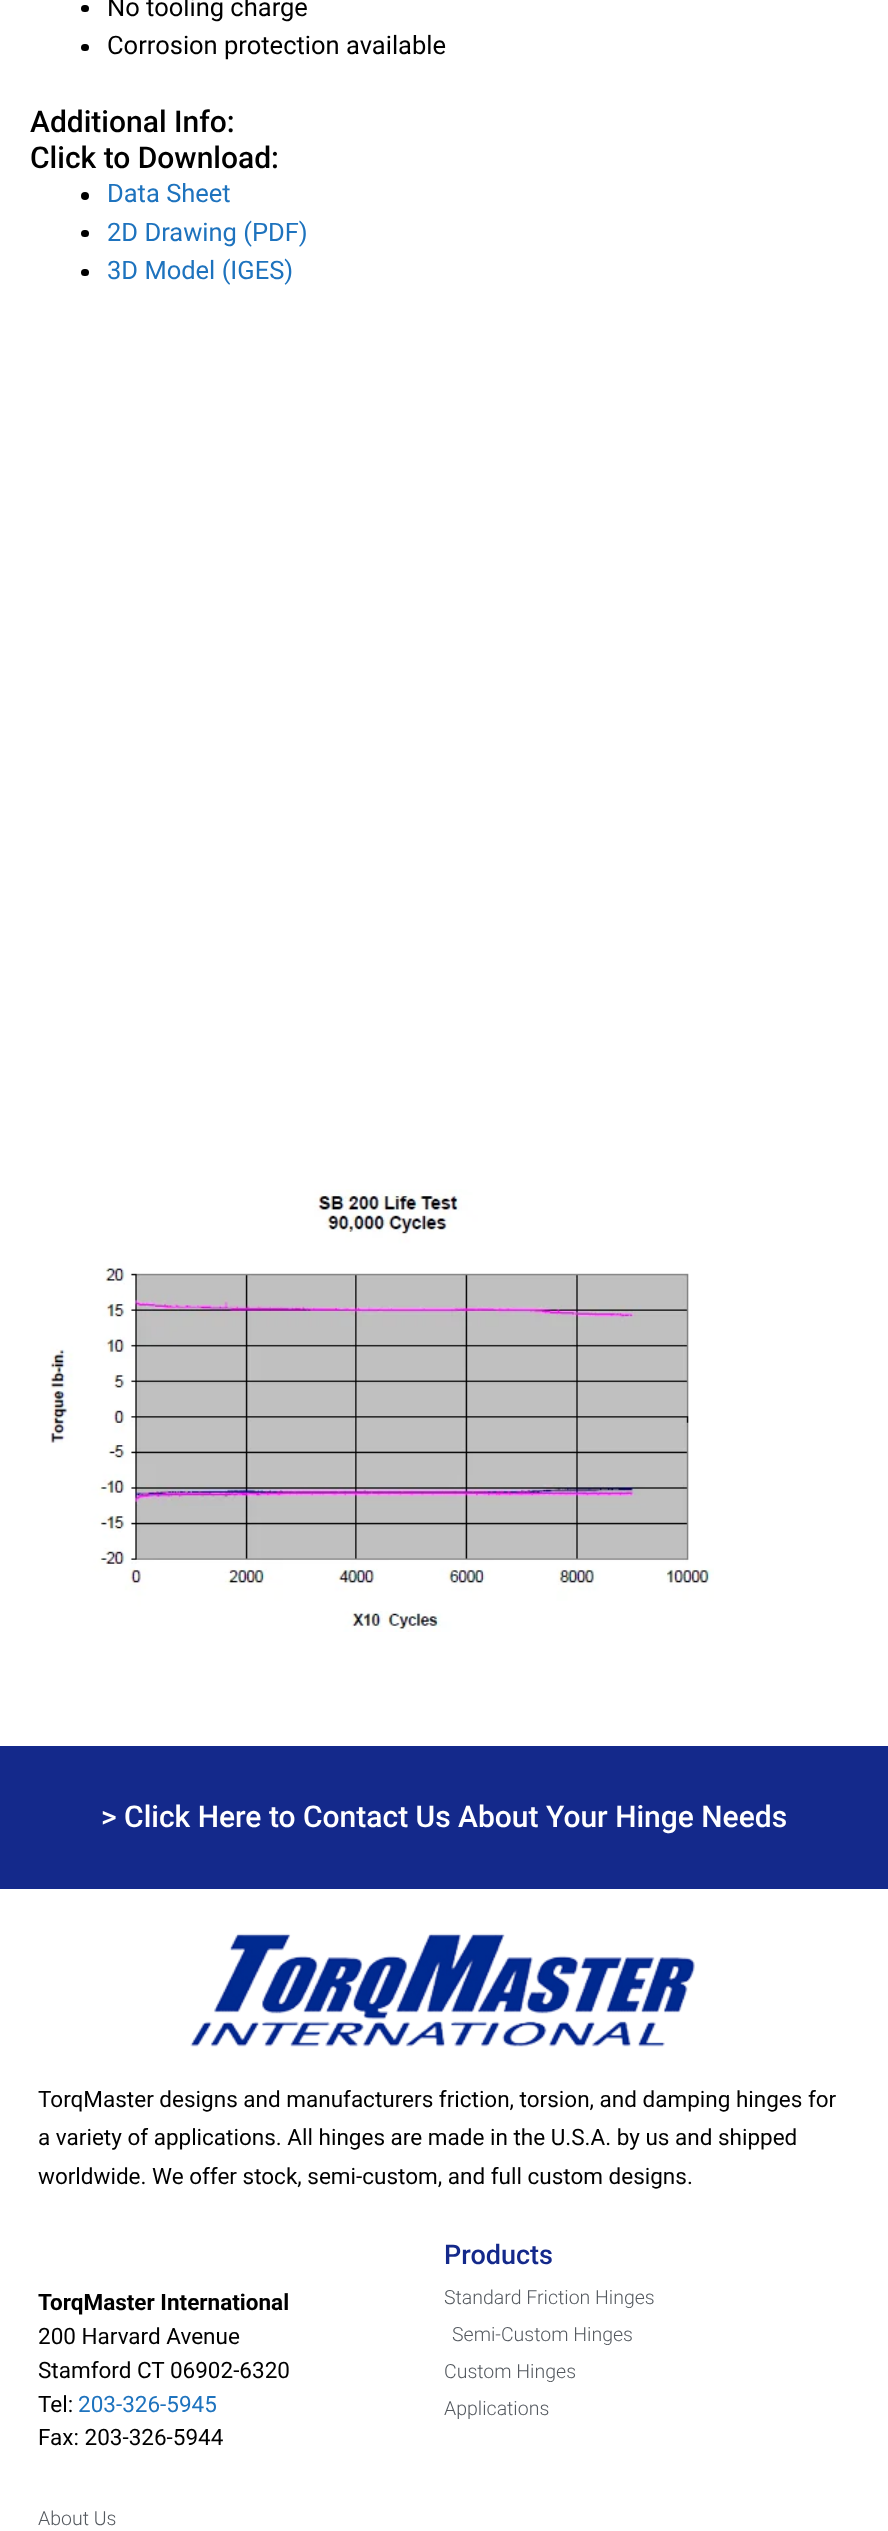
<svg xmlns="http://www.w3.org/2000/svg" width="888" height="2531" viewBox="0 0 888 2531">
  <rect width="100%" height="100%" fill="#ffffff"/>
  <rect x="81" y="5" width="8" height="7" rx="3.5" fill="#000000"/>
  <text x="107" y="16" font-family="Roboto" font-size="25.5" fill="#000000">No tooling charge</text>
  <rect x="81" y="44" width="8" height="7" rx="3.5" fill="#000000"/>
  <text x="107" y="54" font-family="Roboto" font-size="25.5" fill="#000000">Corrosion protection available</text>
  <text x="30" y="132" font-family="Roboto" font-size="30" font-weight="500" fill="#000000">Additional Info:</text>
  <text x="30" y="168" font-family="Roboto" font-size="30" font-weight="500" fill="#000000">Click to Download:</text>
  <circle cx="85" cy="196" r="4" fill="#000000"/>
  <text x="107" y="202" font-family="Roboto" font-size="25.5" fill="#1e73be">Data Sheet</text>
  <rect x="81" y="230" width="8" height="7" rx="3.5" fill="#000000"/>
  <text x="107" y="241" font-family="Roboto" font-size="25.5" fill="#1e73be">2D Drawing (PDF)</text>
  <rect x="81" y="269" width="8" height="7" rx="3.5" fill="#000000"/>
  <text x="107" y="279" font-family="Roboto" font-size="25.5" fill="#1e73be">3D Model (IGES)</text>
  <image x="50" y="1189" width="664" height="443" href="img1.png"/>
  <rect x="0" y="1746" width="888" height="143" fill="#14298b"/>
  <text x="101" y="1827" font-family="Roboto" font-size="30" font-weight="500" fill="#ffffff">&gt; Click Here to Contact Us About Your Hinge Needs</text>
  <image x="190" y="1933" width="505" height="114" href="img2.png"/>
  <text x="38" y="2107" font-family="Roboto" font-size="22.5" fill="#000000">TorqMaster designs and manufacturers friction, torsion, and damping hinges for</text>
  <text x="38" y="2145" font-family="Roboto" font-size="22.5" fill="#000000">a variety of applications. All hinges are made in the U.S.A. by us and shipped</text>
  <text x="38" y="2184" font-family="Roboto" font-size="22.5" fill="#000000">worldwide. We offer stock, semi-custom, and full custom designs.</text>
  <text x="38" y="2310" font-family="Roboto" font-size="22.5" font-weight="bold" fill="#000000">TorqMaster International</text>
  <text x="38" y="2344" font-family="Roboto" font-size="22.5" fill="#000000">200 Harvard Avenue</text>
  <text x="38" y="2378" font-family="Roboto" font-size="22.5" fill="#000000">Stamford CT 06902-6320</text>
  <text x="38" y="2412" font-family="Roboto" font-size="22.5" fill="#000000">Tel:</text>
  <text x="78" y="2412" font-family="Roboto" font-size="22.5" fill="#1e73be">203-326-5945</text>
  <text x="38" y="2445" font-family="Roboto" font-size="22.5" fill="#000000">Fax: 203-326-5944</text>
  <text x="38" y="2525" font-family="Roboto" font-size="19.5" font-weight="300" fill="#54595f">About Us</text>
  <text x="444" y="2264" font-family="Roboto" font-size="27" font-weight="500" fill="#14298b">Products</text>
  <text x="444" y="2304" font-family="Roboto" font-size="19.5" font-weight="300" fill="#54595f">Standard Friction Hinges</text>
  <text x="452" y="2341" font-family="Roboto" font-size="19.5" font-weight="300" fill="#54595f">Semi-Custom Hinges</text>
  <text x="444" y="2378" font-family="Roboto" font-size="19.5" font-weight="300" fill="#54595f">Custom Hinges</text>
  <text x="444" y="2415" font-family="Roboto" font-size="19.5" font-weight="300" fill="#54595f">Applications</text>
</svg>
